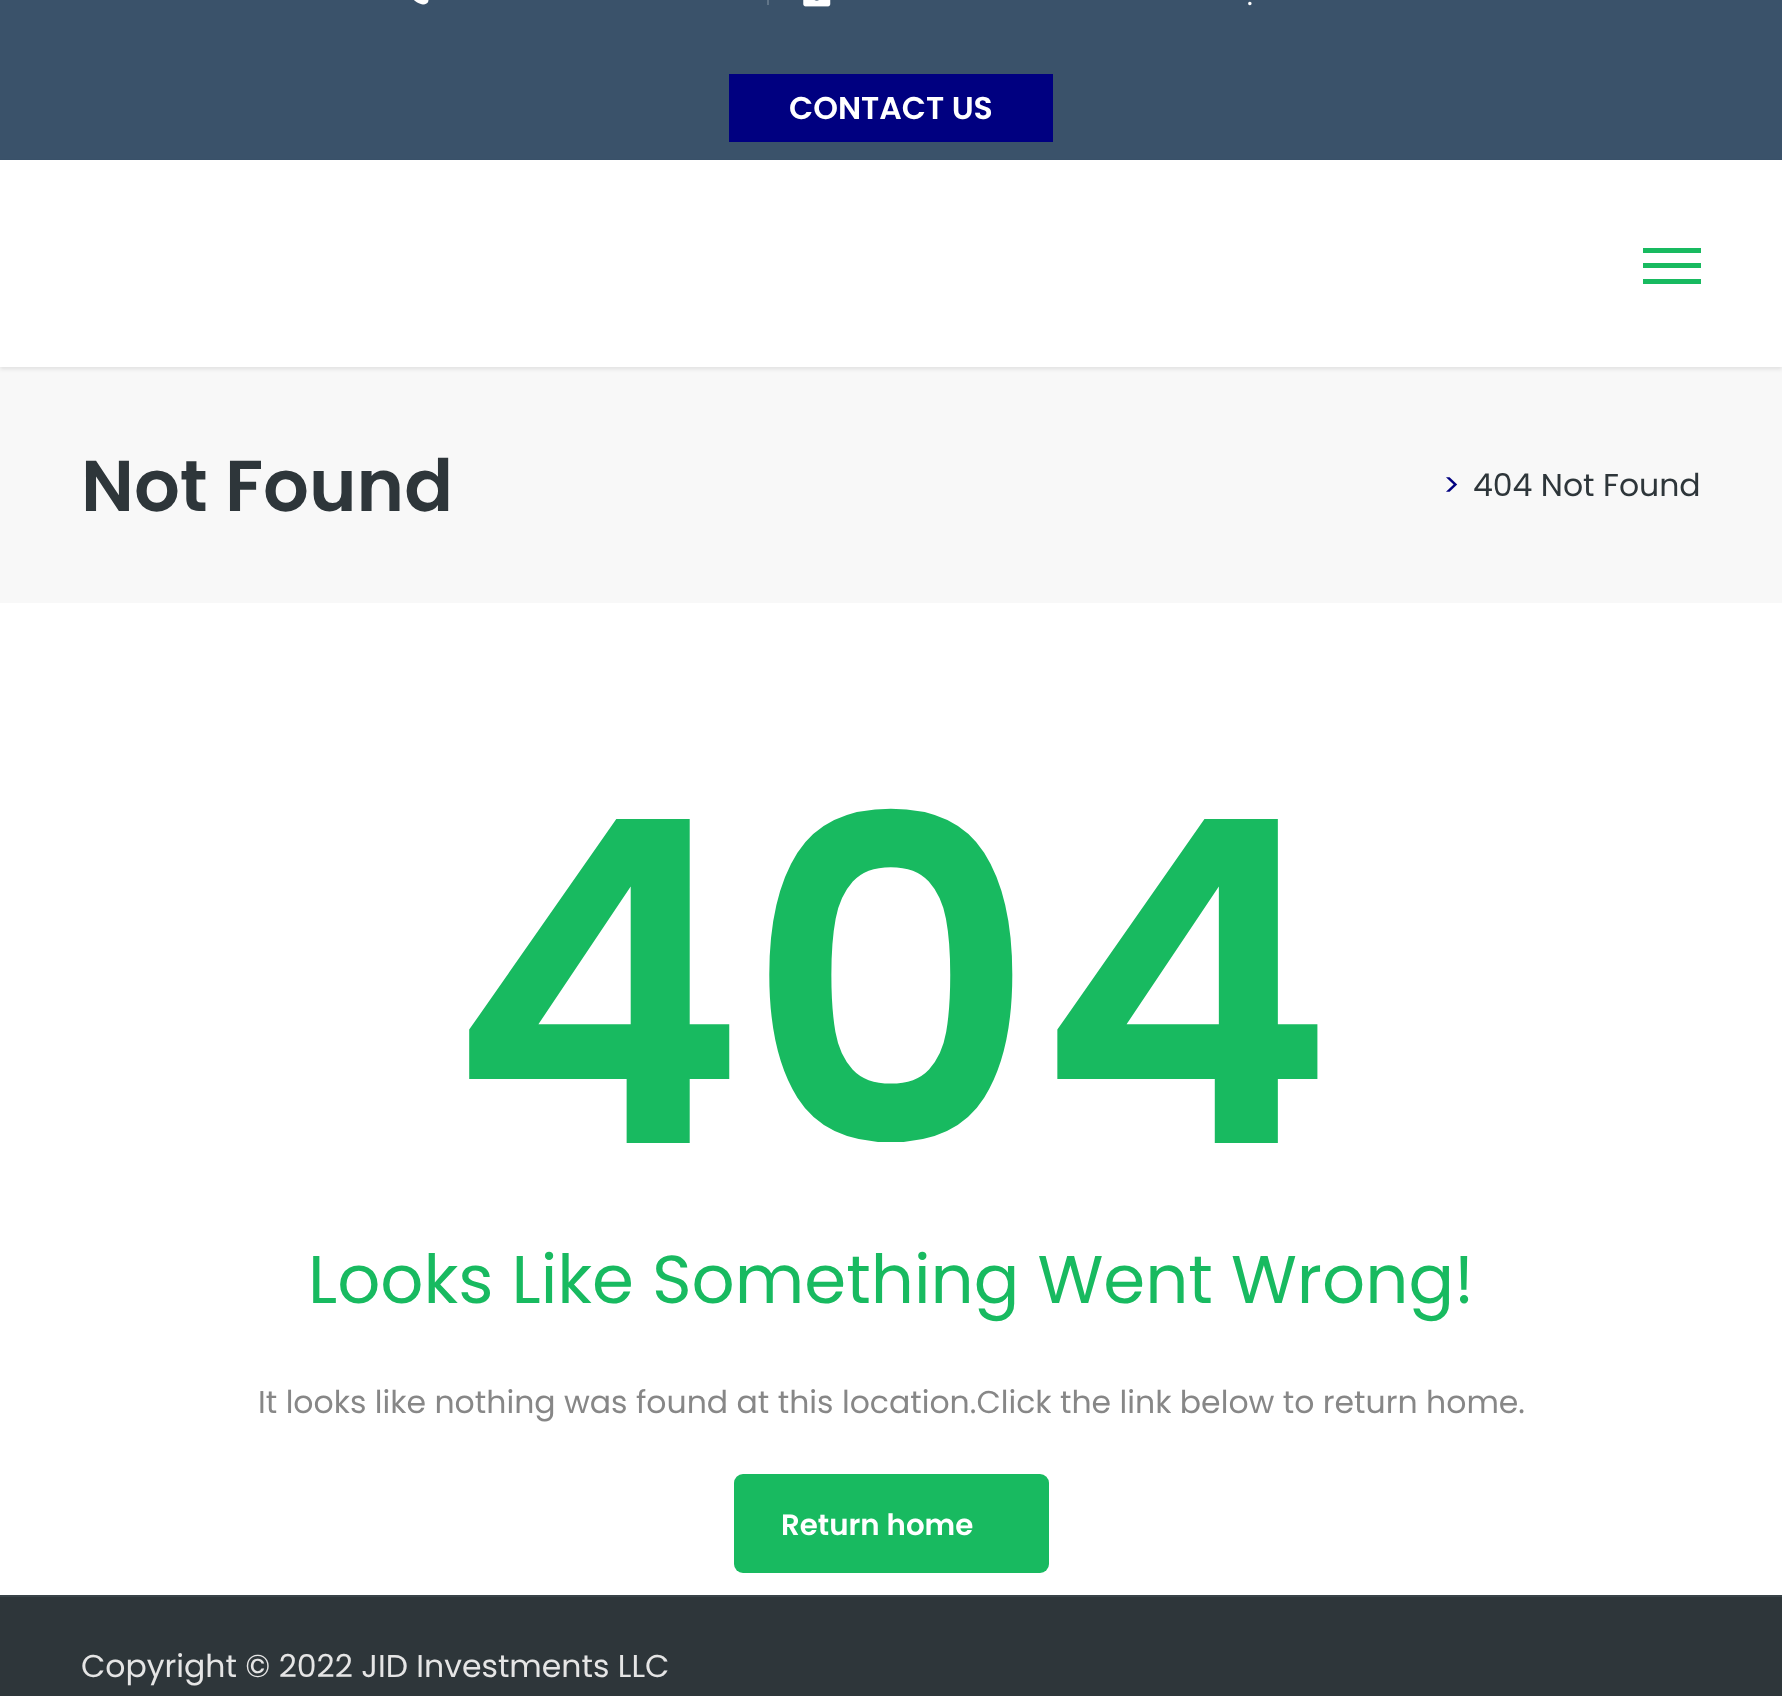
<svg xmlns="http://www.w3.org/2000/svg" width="1782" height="1696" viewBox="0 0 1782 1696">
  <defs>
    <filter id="blur1" x="-50%" y="-200%" width="200%" height="500%"><feGaussianBlur stdDeviation="2"/></filter>
  </defs>
  <rect width="100%" height="100%" fill="#ffffff"/>
  <rect x="0" y="0" width="1782" height="160" fill="#3a526a"/>
  <image x="414" y="0" width="15" height="5" href="img1.png"/>
  <rect x="767" y="0" width="2" height="5" fill="#617588"/>
  <image x="803" y="0" width="28" height="7" href="img2.png"/>
  <text x="1247" y="5" font-family="Poppins" font-size="27" fill="#ffffff">.</text>
  <rect x="729" y="74" width="324" height="68" fill="#000080"/>
  <text x="789" y="119" font-family="Poppins" font-size="31.5" font-weight="600" fill="#ffffff">CONTACT US</text>
  <rect x="0" y="367" width="1782" height="236" fill="#f8f8f8"/>
  <rect x="0" y="162" width="1782" height="207" fill="#000000" fill-opacity="0.1" filter="url(#blur1)"/>
  <rect x="0" y="160" width="1782" height="207" fill="#ffffff"/>
  <rect x="1643" y="248" width="58" height="5" fill="#18ba60"/>
  <rect x="1643" y="263" width="58" height="5" fill="#18ba60"/>
  <rect x="1643" y="279" width="58" height="5" fill="#18ba60"/>
  <text x="81" y="511" font-family="Poppins" font-size="72" font-weight="600" fill="#2e363a">Not Found</text>
  <text x="1443" y="496" font-family="Poppins" font-size="31.5" fill="#000080">&gt;</text>
  <text x="1473" y="496" font-family="Poppins" font-size="31.5" fill="#2e363a">404 Not Found</text>
  <text x="448" y="1143" font-family="Poppins" font-size="450" font-weight="600" fill="#18ba60">404</text>
  <text x="308" y="1303" font-family="Poppins" font-size="67.5" fill="#18ba60">Looks Like Something Went Wrong!</text>
  <text x="258" y="1413" font-family="Poppins" font-size="31.5" fill="#878787">It looks like nothing was found at this location.Click the link below to return home.</text>
  <rect x="734" y="1474" width="315" height="99" rx="9" fill="#18ba60"/>
  <text x="781" y="1535" font-family="Poppins" font-size="29.25" font-weight="600" fill="#ffffff">Return home</text>
  <rect x="0" y="1597" width="1782" height="99" fill="#2e363a"/>
  <rect x="0" y="1595" width="1782" height="2" fill="#394348"/>
  <text x="81" y="1677" font-family="Poppins" font-size="31.5" fill="#e5e5e5">Copyright © 2022 JID Investments LLC</text>
</svg>
